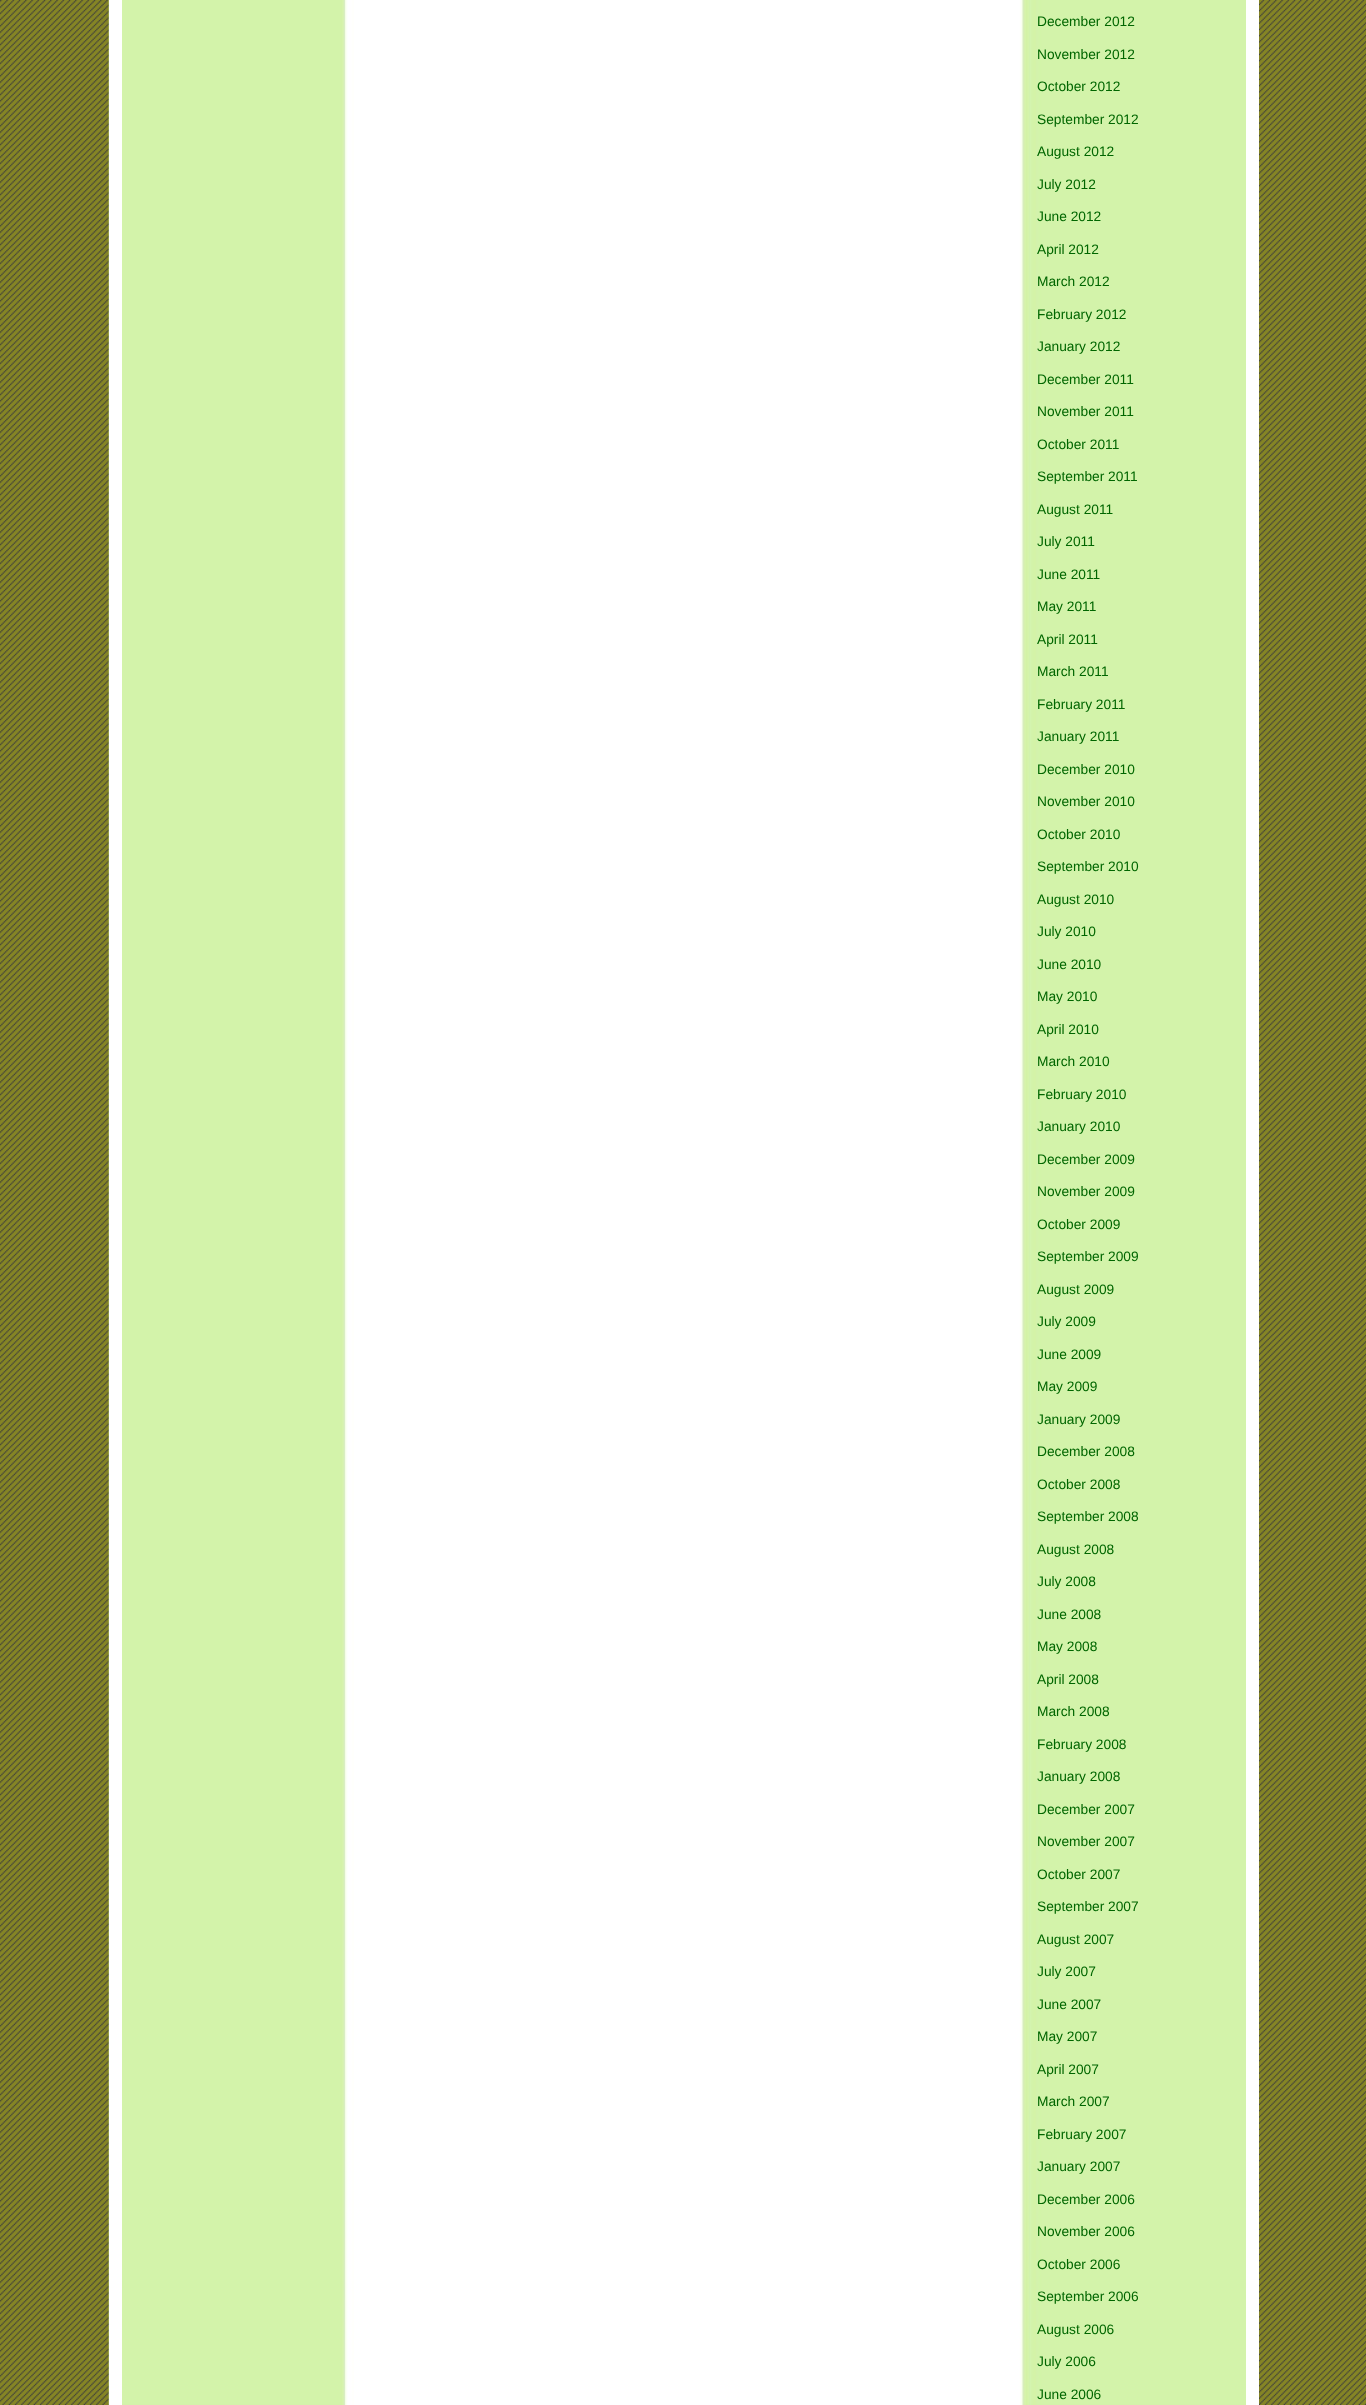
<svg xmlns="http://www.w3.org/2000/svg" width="1366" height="2405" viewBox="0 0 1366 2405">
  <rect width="100%" height="100%" fill="#ffffff"/>
  <image x="0" y="0" width="1366" height="2405" href="img1.png"/>
  <image x="108" y="0" width="1138" height="2405" href="img2.png"/>
  <rect x="115.5" y="-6.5" width="1137" height="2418" fill="none" stroke="#ffffff" stroke-width="13"/>
  <text x="1037" y="26" font-family="Liberation Sans" font-size="13.75" fill="#006600">December 2012</text>
  <text x="1037" y="59" font-family="Liberation Sans" font-size="13.75" fill="#006600">November 2012</text>
  <text x="1037" y="91" font-family="Liberation Sans" font-size="13.75" fill="#006600">October 2012</text>
  <text x="1037" y="124" font-family="Liberation Sans" font-size="13.75" fill="#006600">September 2012</text>
  <text x="1037" y="156" font-family="Liberation Sans" font-size="13.75" fill="#006600">August 2012</text>
  <text x="1037" y="189" font-family="Liberation Sans" font-size="13.75" fill="#006600">July 2012</text>
  <text x="1037" y="221" font-family="Liberation Sans" font-size="13.75" fill="#006600">June 2012</text>
  <text x="1037" y="254" font-family="Liberation Sans" font-size="13.75" fill="#006600">April 2012</text>
  <text x="1037" y="286" font-family="Liberation Sans" font-size="13.75" fill="#006600">March 2012</text>
  <text x="1037" y="319" font-family="Liberation Sans" font-size="13.75" fill="#006600">February 2012</text>
  <text x="1037" y="351" font-family="Liberation Sans" font-size="13.75" fill="#006600">January 2012</text>
  <text x="1037" y="384" font-family="Liberation Sans" font-size="13.75" fill="#006600">December 2011</text>
  <text x="1037" y="416" font-family="Liberation Sans" font-size="13.75" fill="#006600">November 2011</text>
  <text x="1037" y="449" font-family="Liberation Sans" font-size="13.75" fill="#006600">October 2011</text>
  <text x="1037" y="481" font-family="Liberation Sans" font-size="13.75" fill="#006600">September 2011</text>
  <text x="1037" y="514" font-family="Liberation Sans" font-size="13.75" fill="#006600">August 2011</text>
  <text x="1037" y="546" font-family="Liberation Sans" font-size="13.75" fill="#006600">July 2011</text>
  <text x="1037" y="579" font-family="Liberation Sans" font-size="13.75" fill="#006600">June 2011</text>
  <text x="1037" y="611" font-family="Liberation Sans" font-size="13.75" fill="#006600">May 2011</text>
  <text x="1037" y="644" font-family="Liberation Sans" font-size="13.75" fill="#006600">April 2011</text>
  <text x="1037" y="676" font-family="Liberation Sans" font-size="13.75" fill="#006600">March 2011</text>
  <text x="1037" y="709" font-family="Liberation Sans" font-size="13.75" fill="#006600">February 2011</text>
  <text x="1037" y="741" font-family="Liberation Sans" font-size="13.75" fill="#006600">January 2011</text>
  <text x="1037" y="774" font-family="Liberation Sans" font-size="13.75" fill="#006600">December 2010</text>
  <text x="1037" y="806" font-family="Liberation Sans" font-size="13.75" fill="#006600">November 2010</text>
  <text x="1037" y="839" font-family="Liberation Sans" font-size="13.75" fill="#006600">October 2010</text>
  <text x="1037" y="871" font-family="Liberation Sans" font-size="13.75" fill="#006600">September 2010</text>
  <text x="1037" y="904" font-family="Liberation Sans" font-size="13.75" fill="#006600">August 2010</text>
  <text x="1037" y="936" font-family="Liberation Sans" font-size="13.75" fill="#006600">July 2010</text>
  <text x="1037" y="969" font-family="Liberation Sans" font-size="13.75" fill="#006600">June 2010</text>
  <text x="1037" y="1001" font-family="Liberation Sans" font-size="13.75" fill="#006600">May 2010</text>
  <text x="1037" y="1034" font-family="Liberation Sans" font-size="13.75" fill="#006600">April 2010</text>
  <text x="1037" y="1066" font-family="Liberation Sans" font-size="13.75" fill="#006600">March 2010</text>
  <text x="1037" y="1099" font-family="Liberation Sans" font-size="13.75" fill="#006600">February 2010</text>
  <text x="1037" y="1131" font-family="Liberation Sans" font-size="13.75" fill="#006600">January 2010</text>
  <text x="1037" y="1164" font-family="Liberation Sans" font-size="13.75" fill="#006600">December 2009</text>
  <text x="1037" y="1196" font-family="Liberation Sans" font-size="13.75" fill="#006600">November 2009</text>
  <text x="1037" y="1229" font-family="Liberation Sans" font-size="13.75" fill="#006600">October 2009</text>
  <text x="1037" y="1261" font-family="Liberation Sans" font-size="13.75" fill="#006600">September 2009</text>
  <text x="1037" y="1294" font-family="Liberation Sans" font-size="13.75" fill="#006600">August 2009</text>
  <text x="1037" y="1326" font-family="Liberation Sans" font-size="13.75" fill="#006600">July 2009</text>
  <text x="1037" y="1359" font-family="Liberation Sans" font-size="13.75" fill="#006600">June 2009</text>
  <text x="1037" y="1391" font-family="Liberation Sans" font-size="13.75" fill="#006600">May 2009</text>
  <text x="1037" y="1424" font-family="Liberation Sans" font-size="13.75" fill="#006600">January 2009</text>
  <text x="1037" y="1456" font-family="Liberation Sans" font-size="13.75" fill="#006600">December 2008</text>
  <text x="1037" y="1489" font-family="Liberation Sans" font-size="13.75" fill="#006600">October 2008</text>
  <text x="1037" y="1521" font-family="Liberation Sans" font-size="13.75" fill="#006600">September 2008</text>
  <text x="1037" y="1554" font-family="Liberation Sans" font-size="13.75" fill="#006600">August 2008</text>
  <text x="1037" y="1586" font-family="Liberation Sans" font-size="13.75" fill="#006600">July 2008</text>
  <text x="1037" y="1619" font-family="Liberation Sans" font-size="13.75" fill="#006600">June 2008</text>
  <text x="1037" y="1651" font-family="Liberation Sans" font-size="13.75" fill="#006600">May 2008</text>
  <text x="1037" y="1684" font-family="Liberation Sans" font-size="13.75" fill="#006600">April 2008</text>
  <text x="1037" y="1716" font-family="Liberation Sans" font-size="13.75" fill="#006600">March 2008</text>
  <text x="1037" y="1749" font-family="Liberation Sans" font-size="13.75" fill="#006600">February 2008</text>
  <text x="1037" y="1781" font-family="Liberation Sans" font-size="13.75" fill="#006600">January 2008</text>
  <text x="1037" y="1814" font-family="Liberation Sans" font-size="13.75" fill="#006600">December 2007</text>
  <text x="1037" y="1846" font-family="Liberation Sans" font-size="13.75" fill="#006600">November 2007</text>
  <text x="1037" y="1879" font-family="Liberation Sans" font-size="13.75" fill="#006600">October 2007</text>
  <text x="1037" y="1911" font-family="Liberation Sans" font-size="13.75" fill="#006600">September 2007</text>
  <text x="1037" y="1944" font-family="Liberation Sans" font-size="13.75" fill="#006600">August 2007</text>
  <text x="1037" y="1976" font-family="Liberation Sans" font-size="13.75" fill="#006600">July 2007</text>
  <text x="1037" y="2009" font-family="Liberation Sans" font-size="13.75" fill="#006600">June 2007</text>
  <text x="1037" y="2041" font-family="Liberation Sans" font-size="13.75" fill="#006600">May 2007</text>
  <text x="1037" y="2074" font-family="Liberation Sans" font-size="13.75" fill="#006600">April 2007</text>
  <text x="1037" y="2106" font-family="Liberation Sans" font-size="13.75" fill="#006600">March 2007</text>
  <text x="1037" y="2139" font-family="Liberation Sans" font-size="13.75" fill="#006600">February 2007</text>
  <text x="1037" y="2171" font-family="Liberation Sans" font-size="13.75" fill="#006600">January 2007</text>
  <text x="1037" y="2204" font-family="Liberation Sans" font-size="13.75" fill="#006600">December 2006</text>
  <text x="1037" y="2236" font-family="Liberation Sans" font-size="13.75" fill="#006600">November 2006</text>
  <text x="1037" y="2269" font-family="Liberation Sans" font-size="13.75" fill="#006600">October 2006</text>
  <text x="1037" y="2301" font-family="Liberation Sans" font-size="13.75" fill="#006600">September 2006</text>
  <text x="1037" y="2334" font-family="Liberation Sans" font-size="13.75" fill="#006600">August 2006</text>
  <text x="1037" y="2366" font-family="Liberation Sans" font-size="13.75" fill="#006600">July 2006</text>
  <text x="1037" y="2399" font-family="Liberation Sans" font-size="13.75" fill="#006600">June 2006</text>
</svg>
